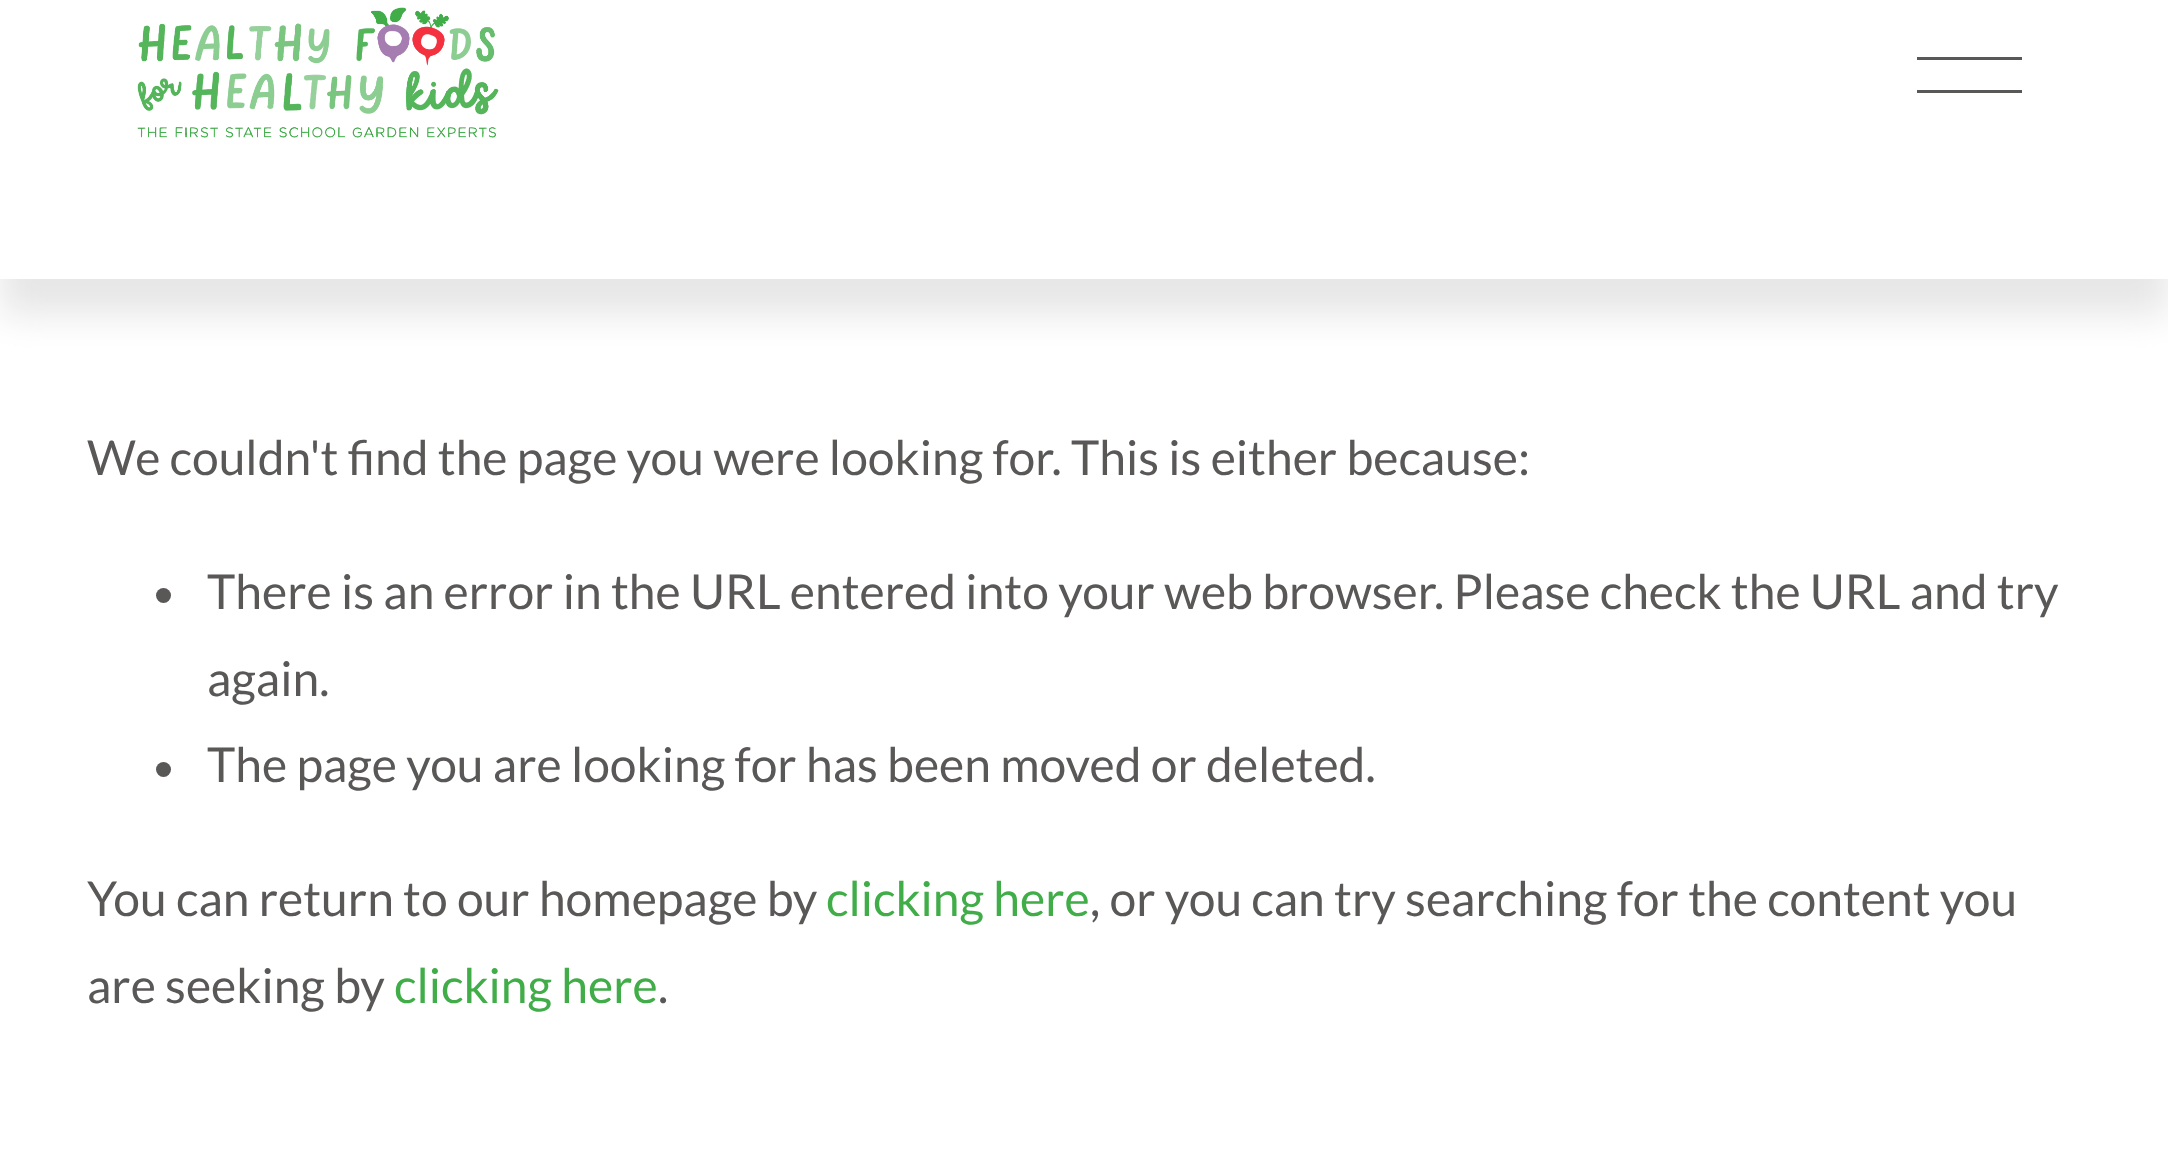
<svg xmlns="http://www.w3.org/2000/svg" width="2168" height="1162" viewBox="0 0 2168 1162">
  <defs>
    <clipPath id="clip1"><rect x="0" y="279" width="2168" height="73"/></clipPath>
    <filter id="blur1" x="-50%" y="-200%" width="200%" height="500%"><feGaussianBlur stdDeviation="18"/></filter>
  </defs>
  <rect width="100%" height="100%" fill="#ffffff"/>
  <g clip-path="url(#clip1)">
    <rect x="0" y="36" width="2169" height="279" fill="#e7e6e6" filter="url(#blur1)"/>
  </g>
  <image x="137" y="7" width="362" height="131" href="img1.png"/>
  <rect x="1917" y="57" width="105" height="3" fill="#5a5757"/>
  <rect x="1917" y="90" width="105" height="3" fill="#5a5757"/>
  <text x="87" y="475" font-family="Lato" font-size="48" fill="#5a5757">We couldn't find the page you were looking for. This is either because:</text>
  <circle cx="163.5" cy="595.5" r="7.5" fill="#5a5757"/>
  <text x="207" y="609" font-family="Lato" font-size="48" fill="#5a5757">There is an error in the URL entered into your web browser. Please check the URL and try</text>
  <text x="207" y="696" font-family="Lato" font-size="48" fill="#5a5757">again.</text>
  <circle cx="163.5" cy="769.5" r="7.5" fill="#5a5757"/>
  <text x="207" y="782" font-family="Lato" font-size="48" fill="#5a5757">The page you are looking for has been moved or deleted.</text>
  <text x="87" y="916" font-family="Lato" font-size="48" fill="#5a5757">You can return to our homepage by</text>
  <text x="826" y="916" font-family="Lato" font-size="48" fill="#41ad49">clicking here</text>
  <text x="1090" y="916" font-family="Lato" font-size="48" fill="#5a5757">, or you can try searching for the content you</text>
  <text x="87" y="1003" font-family="Lato" font-size="48" fill="#5a5757">are seeking by</text>
  <text x="394" y="1003" font-family="Lato" font-size="48" fill="#41ad49">clicking here</text>
  <text x="658" y="1003" font-family="Lato" font-size="48" fill="#5a5757">.</text>
</svg>
